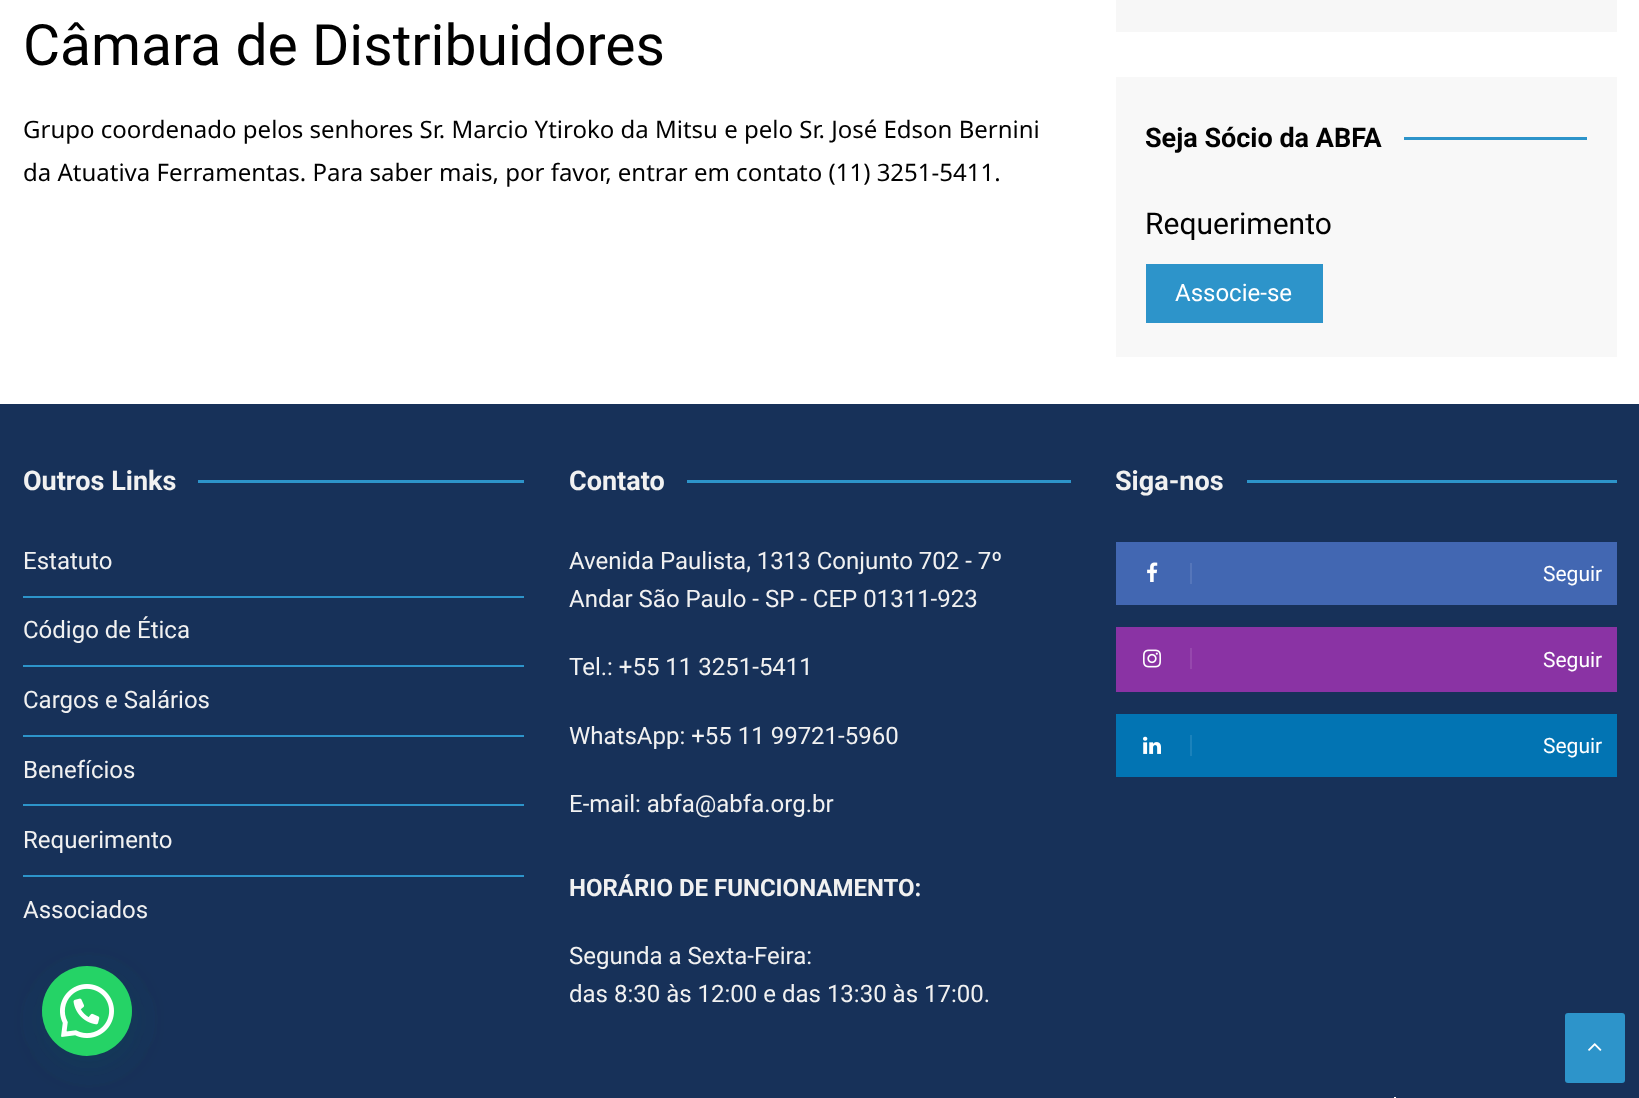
<svg xmlns="http://www.w3.org/2000/svg" width="1639" height="1098" viewBox="0 0 1639 1098">
  <defs>
    <filter id="blur1" x="-50%" y="-200%" width="200%" height="500%"><feGaussianBlur stdDeviation="18"/></filter>
  </defs>
  <rect width="100%" height="100%" fill="#ffffff"/>
  <text x="23" y="65" font-family="Roboto" font-size="57" fill="#010101">Câmara de Distribuidores</text>
  <text x="23" y="138" font-family="Noto Sans" font-size="24" fill="#010101">Grupo coordenado pelos senhores Sr. Marcio Ytiroko da Mitsu e pelo Sr. José Edson Bernini</text>
  <text x="23" y="181" font-family="Noto Sans" font-size="24" fill="#010101">da Atuativa Ferramentas. Para saber mais, por favor, entrar em contato (11) 3251-5411.</text>
  <rect x="1116" y="0" width="501" height="32" fill="#f7f7f7"/>
  <rect x="1116" y="77" width="501" height="280" fill="#f8f8f8"/>
  <text x="1145" y="147" font-family="Roboto" font-size="27" font-weight="bold" fill="#010101">Seja Sócio da ABFA</text>
  <rect x="1404" y="137" width="183" height="3" fill="#2d94ca"/>
  <text x="1145" y="234" font-family="Roboto" font-size="30" fill="#010101">Requerimento</text>
  <rect x="1146" y="264" width="177" height="59" fill="#2d94ca"/>
  <text x="1175" y="301" font-family="Roboto" font-size="24" fill="#ffffff">Associe-se</text>
  <rect x="0" y="404" width="1639" height="694" fill="#173159"/>
  <text x="23" y="490" font-family="Roboto" font-size="27" font-weight="bold" fill="#f1f1f1">Outros Links</text>
  <rect x="198" y="480" width="326" height="3" fill="#2d94ca"/>
  <rect x="23" y="596" width="501" height="2" fill="#2d94ca"/>
  <text x="23" y="569" font-family="Roboto" font-size="24" fill="#f1f1f1">Estatuto</text>
  <rect x="23" y="665" width="501" height="2" fill="#2d94ca"/>
  <text x="23" y="638" font-family="Roboto" font-size="24" fill="#f1f1f1">Código de Ética</text>
  <rect x="23" y="735" width="501" height="2" fill="#2d94ca"/>
  <text x="23" y="708" font-family="Roboto" font-size="24" fill="#f1f1f1">Cargos e Salários</text>
  <rect x="23" y="804" width="501" height="2" fill="#2d94ca"/>
  <text x="23" y="778" font-family="Roboto" font-size="24" fill="#f1f1f1">Benefícios</text>
  <rect x="23" y="875" width="501" height="2" fill="#2d94ca"/>
  <text x="23" y="848" font-family="Roboto" font-size="24" fill="#f1f1f1">Requerimento</text>
  <text x="23" y="918" font-family="Roboto" font-size="24" fill="#f1f1f1">Associados</text>
  <text x="569" y="490" font-family="Roboto" font-size="27" font-weight="bold" fill="#f1f1f1">Contato</text>
  <rect x="687" y="480" width="384" height="3" fill="#2d94ca"/>
  <text x="569" y="569" font-family="Roboto" font-size="24" fill="#f1f1f1">Avenida Paulista, 1313 Conjunto 702 - 7º</text>
  <text x="569" y="607" font-family="Roboto" font-size="24" fill="#f1f1f1">Andar São Paulo - SP - CEP 01311-923</text>
  <text x="569" y="675" font-family="Roboto" font-size="24" fill="#f1f1f1">Tel.: +55 11 3251-5411</text>
  <text x="569" y="744" font-family="Roboto" font-size="24" fill="#f1f1f1">WhatsApp: +55 11 99721-5960</text>
  <text x="569" y="812" font-family="Roboto" font-size="24" fill="#f1f1f1">E-mail: abfa@abfa.org.br</text>
  <text x="569" y="896" font-family="Roboto" font-size="24" font-weight="bold" fill="#f1f1f1">HORÁRIO DE FUNCIONAMENTO:</text>
  <text x="569" y="964" font-family="Roboto" font-size="24" fill="#f1f1f1">Segunda a Sexta-Feira:</text>
  <text x="569" y="1002" font-family="Roboto" font-size="24" fill="#f1f1f1">das 8:30 às 12:00 e das 13:30 às 17:00.</text>
  <text x="1115" y="490" font-family="Roboto" font-size="27" font-weight="bold" fill="#f1f1f1">Siga-nos</text>
  <rect x="1247" y="480" width="370" height="3" fill="#2d94ca"/>
  <rect x="1116" y="542" width="501" height="63" fill="#4267b2"/>
  <rect x="1190" y="563" width="2" height="21" fill="#5576ba"/>
  <image x="1147" y="562" width="11" height="20" href="img1.png"/>
  <text x="1543" y="581" font-family="Roboto" font-size="21" fill="#ffffff">Seguir</text>
  <rect x="1116" y="627" width="501" height="65" fill="#8a33a4"/>
  <rect x="1190" y="648" width="2" height="21" fill="#9647ad"/>
  <image x="1143" y="649" width="18" height="19" href="img2.png"/>
  <text x="1543" y="667" font-family="Roboto" font-size="21" fill="#ffffff">Seguir</text>
  <rect x="1116" y="714" width="501" height="63" fill="#0274b3"/>
  <rect x="1190" y="735" width="2" height="21" fill="#1b82bb"/>
  <image x="1143" y="736" width="18" height="18" href="img3.png"/>
  <text x="1543" y="753" font-family="Roboto" font-size="21" fill="#ffffff">Seguir</text>
  <rect x="1394" y="1097" width="2" height="1" fill="#ffffff"/>
  <rect x="44" y="975" width="90" height="90" rx="45" fill="#075e54" fill-opacity="0.24" filter="url(#blur1)"/>
  <circle cx="87" cy="1011" r="45" fill="#25d366"/>
  <image x="60" y="984" width="54" height="54" href="img4.png"/>
  <rect x="1565" y="1013" width="60" height="70" rx="3" fill="#2d94ca"/>
  <image x="1588" y="1043" width="14" height="8" href="img5.png"/>
</svg>
